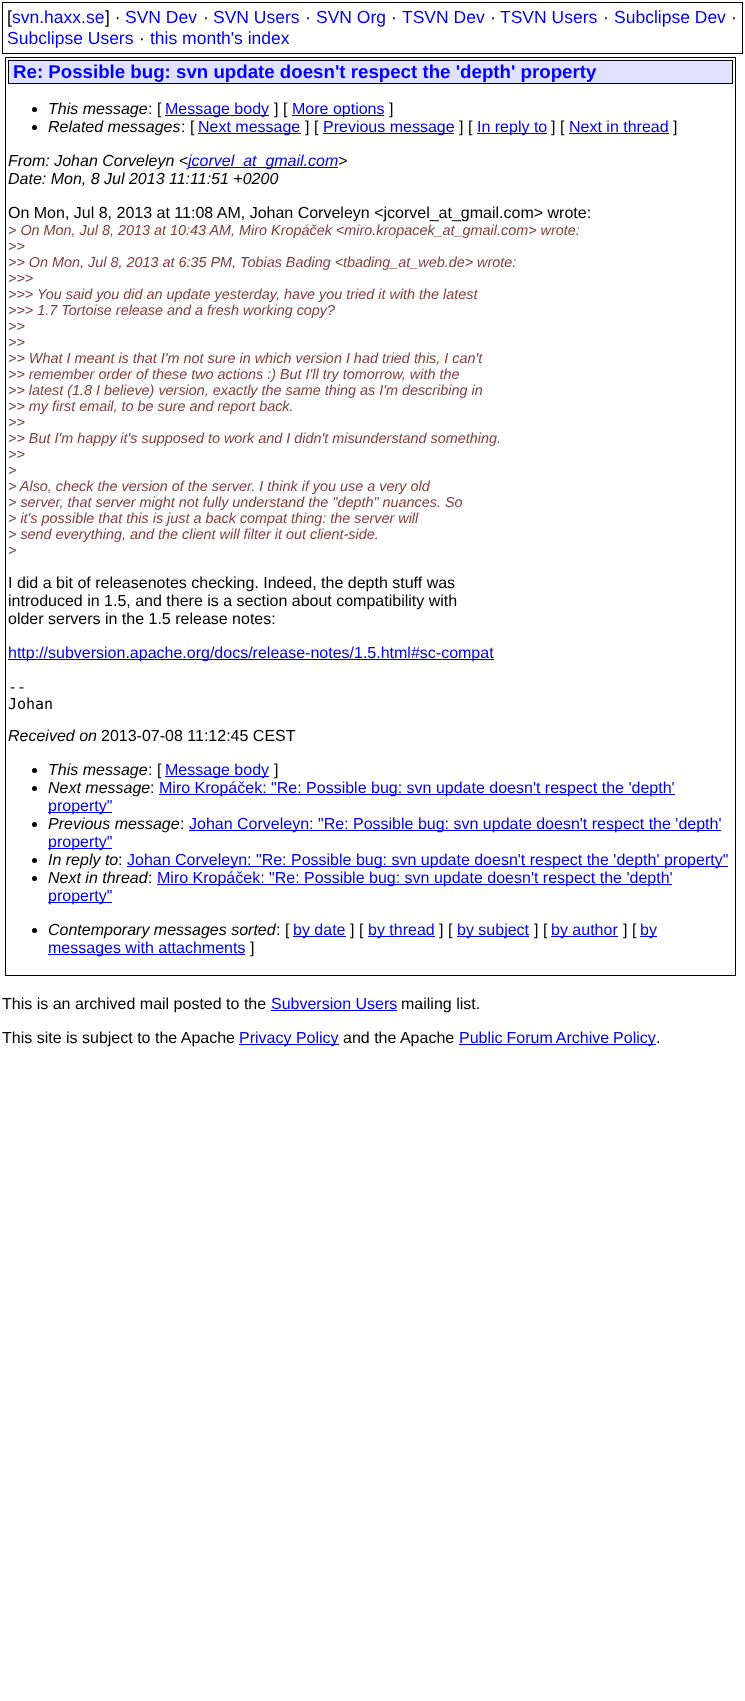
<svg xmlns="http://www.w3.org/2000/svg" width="745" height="1701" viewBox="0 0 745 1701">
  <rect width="100%" height="100%" fill="#ffffff"/>
  <rect x="2.5" y="2.5" width="740" height="51" fill="none" stroke="#000000"/>
  <text x="7" y="23" font-family="Liberation Sans" font-size="17.5" fill="#000000">[</text>
  <text x="12" y="23" font-family="Liberation Sans" font-size="17.5" fill="#0000ee">svn.haxx.se</text>
  <text x="105" y="23" font-family="Liberation Sans" font-size="17.5" fill="#000000">] ·</text>
  <text x="125" y="23" font-family="Liberation Sans" font-size="17.5" fill="#0000ee">SVN Dev</text>
  <text x="203" y="23" font-family="Liberation Sans" font-size="17.5" fill="#000000">·</text>
  <text x="213" y="23" font-family="Liberation Sans" font-size="17.5" fill="#0000ee">SVN Users</text>
  <text x="305" y="23" font-family="Liberation Sans" font-size="17.5" fill="#000000">·</text>
  <text x="316" y="23" font-family="Liberation Sans" font-size="17.5" fill="#0000ee">SVN Org</text>
  <text x="391" y="23" font-family="Liberation Sans" font-size="17.5" fill="#000000">·</text>
  <text x="402" y="23" font-family="Liberation Sans" font-size="17.5" fill="#0000ee">TSVN Dev</text>
  <text x="490" y="23" font-family="Liberation Sans" font-size="17.5" fill="#000000">·</text>
  <text x="500" y="23" font-family="Liberation Sans" font-size="17.5" fill="#0000ee">TSVN Users</text>
  <text x="603" y="23" font-family="Liberation Sans" font-size="17.5" fill="#000000">·</text>
  <text x="614" y="23" font-family="Liberation Sans" font-size="17.5" fill="#0000ee">Subclipse Dev</text>
  <text x="731" y="23" font-family="Liberation Sans" font-size="17.5" fill="#000000">·</text>
  <text x="7" y="44" font-family="Liberation Sans" font-size="17.5" fill="#0000ee">Subclipse Users</text>
  <text x="139" y="44" font-family="Liberation Sans" font-size="17.5" fill="#000000">·</text>
  <text x="150" y="44" font-family="Liberation Sans" font-size="17.5" fill="#0000ee">this month's index</text>
  <rect x="5.5" y="57.5" width="730" height="918" fill="none" stroke="#000000"/>
  <rect x="8.5" y="60.5" width="724" height="23" fill="#e0e0ff" stroke="#000000"/>
  <text x="13" y="78" font-family="Liberation Sans" font-size="18.7" font-weight="bold" fill="#0000ff">Re: Possible bug: svn update doesn't respect the 'depth' property</text>
  <circle cx="34.5" cy="109.5" r="2.5" fill="#000000"/>
  <text x="48" y="114" font-family="Liberation Sans" font-size="16" font-style="italic" fill="#000000">This message</text>
  <text x="148" y="114" font-family="Liberation Sans" font-size="16" fill="#000000">: [</text>
  <rect x="165" y="115" width="104" height="1" fill="#0000ee"/>
  <text x="165" y="114" font-family="Liberation Sans" font-size="16" fill="#0000ee">Message body</text>
  <text x="274" y="114" font-family="Liberation Sans" font-size="16" fill="#000000">] [</text>
  <rect x="292" y="115" width="92" height="1" fill="#0000ee"/>
  <text x="292" y="114" font-family="Liberation Sans" font-size="16" fill="#0000ee">More options</text>
  <text x="389" y="114" font-family="Liberation Sans" font-size="16" fill="#000000">]</text>
  <circle cx="34.5" cy="127.5" r="2.5" fill="#000000"/>
  <text x="48" y="132" font-family="Liberation Sans" font-size="16" font-style="italic" fill="#000000">Related messages</text>
  <text x="181" y="132" font-family="Liberation Sans" font-size="16" fill="#000000">: [</text>
  <rect x="198" y="133" width="103" height="1" fill="#0000ee"/>
  <text x="198" y="132" font-family="Liberation Sans" font-size="16" fill="#0000ee">Next message</text>
  <text x="305" y="132" font-family="Liberation Sans" font-size="16" fill="#000000">] [</text>
  <rect x="323" y="133" width="131" height="1" fill="#0000ee"/>
  <text x="323" y="132" font-family="Liberation Sans" font-size="16" fill="#0000ee">Previous message</text>
  <text x="459" y="132" font-family="Liberation Sans" font-size="16" fill="#000000">] [</text>
  <rect x="477" y="133" width="70" height="1" fill="#0000ee"/>
  <text x="477" y="132" font-family="Liberation Sans" font-size="16" fill="#0000ee">In reply to</text>
  <text x="551" y="132" font-family="Liberation Sans" font-size="16" fill="#000000">] [</text>
  <text x="569" y="132" font-family="Liberation Sans" font-size="16" fill="#0000ee">Next in thread</text>
  <rect x="569" y="133" width="100" height="1" fill="#0000ee"/>
  <text x="673" y="132" font-family="Liberation Sans" font-size="16" fill="#000000">]</text>
  <text x="8" y="166" font-family="Liberation Sans" font-size="16" font-style="italic" fill="#000000">From: Johan Corveleyn &lt;</text>
  <rect x="188" y="167" width="150" height="1" fill="#0000ee"/>
  <text x="188" y="166" font-family="Liberation Sans" font-size="16" font-style="italic" fill="#0000ee">jcorvel_at_gmail.com</text>
  <text x="338" y="166" font-family="Liberation Sans" font-size="16" font-style="italic" fill="#000000">&gt;</text>
  <text x="8" y="184" font-family="Liberation Sans" font-size="16" font-style="italic" fill="#000000">Date: Mon, 8 Jul 2013 11:11:51 +0200</text>
  <text x="8" y="218" font-family="Liberation Sans" font-size="16" fill="#000000">On Mon, Jul 8, 2013 at 11:08 AM, Johan Corveleyn &lt;jcorvel_at_gmail.com&gt; wrote:</text>
  <text x="8" y="235" font-family="Liberation Sans" font-size="14.4" font-style="italic" fill="#804040">&gt; On Mon, Jul 8, 2013 at 10:43 AM, Miro Kropáček &lt;miro.kropacek_at_gmail.com&gt; wrote:</text>
  <text x="8" y="251" font-family="Liberation Sans" font-size="14.4" font-style="italic" fill="#804040">&gt;&gt;</text>
  <text x="8" y="267" font-family="Liberation Sans" font-size="14.4" font-style="italic" fill="#804040">&gt;&gt; On Mon, Jul 8, 2013 at 6:35 PM, Tobias Bading &lt;tbading_at_web.de&gt; wrote:</text>
  <text x="8" y="283" font-family="Liberation Sans" font-size="14.4" font-style="italic" fill="#804040">&gt;&gt;&gt;</text>
  <text x="8" y="299" font-family="Liberation Sans" font-size="14.4" font-style="italic" fill="#804040">&gt;&gt;&gt; You said you did an update yesterday, have you tried it with the latest</text>
  <text x="8" y="315" font-family="Liberation Sans" font-size="14.4" font-style="italic" fill="#804040">&gt;&gt;&gt; 1.7 Tortoise release and a fresh working copy?</text>
  <text x="8" y="331" font-family="Liberation Sans" font-size="14.4" font-style="italic" fill="#804040">&gt;&gt;</text>
  <text x="8" y="347" font-family="Liberation Sans" font-size="14.4" font-style="italic" fill="#804040">&gt;&gt;</text>
  <text x="8" y="363" font-family="Liberation Sans" font-size="14.4" font-style="italic" fill="#804040">&gt;&gt; What I meant is that I'm not sure in which version I had tried this, I can't</text>
  <text x="8" y="379" font-family="Liberation Sans" font-size="14.4" font-style="italic" fill="#804040">&gt;&gt; remember order of these two actions :) But I'll try tomorrow, with the</text>
  <text x="8" y="395" font-family="Liberation Sans" font-size="14.4" font-style="italic" fill="#804040">&gt;&gt; latest (1.8 I believe) version, exactly the same thing as I'm describing in</text>
  <text x="8" y="411" font-family="Liberation Sans" font-size="14.4" font-style="italic" fill="#804040">&gt;&gt; my first email, to be sure and report back.</text>
  <text x="8" y="427" font-family="Liberation Sans" font-size="14.4" font-style="italic" fill="#804040">&gt;&gt;</text>
  <text x="8" y="443" font-family="Liberation Sans" font-size="14.4" font-style="italic" fill="#804040">&gt;&gt; But I'm happy it's supposed to work and I didn't misunderstand something.</text>
  <text x="8" y="459" font-family="Liberation Sans" font-size="14.4" font-style="italic" fill="#804040">&gt;&gt;</text>
  <text x="8" y="475" font-family="Liberation Sans" font-size="14.4" font-style="italic" fill="#804040">&gt;</text>
  <text x="8" y="491" font-family="Liberation Sans" font-size="14.4" font-style="italic" fill="#804040">&gt; Also, check the version of the server. I think if you use a very old</text>
  <text x="8" y="507" font-family="Liberation Sans" font-size="14.4" font-style="italic" fill="#804040">&gt; server, that server might not fully understand the "depth" nuances. So</text>
  <text x="8" y="523" font-family="Liberation Sans" font-size="14.4" font-style="italic" fill="#804040">&gt; it's possible that this is just a back compat thing: the server will</text>
  <text x="8" y="539" font-family="Liberation Sans" font-size="14.4" font-style="italic" fill="#804040">&gt; send everything, and the client will filter it out client-side.</text>
  <text x="8" y="555" font-family="Liberation Sans" font-size="14.4" font-style="italic" fill="#804040">&gt;</text>
  <text x="8" y="588" font-family="Liberation Sans" font-size="16" fill="#000000">I did a bit of releasenotes checking. Indeed, the depth stuff was</text>
  <text x="8" y="606" font-family="Liberation Sans" font-size="16" fill="#000000">introduced in 1.5, and there is a section about compatibility with</text>
  <text x="8" y="624" font-family="Liberation Sans" font-size="16" fill="#000000">older servers in the 1.5 release notes:</text>
  <rect x="8" y="659" width="486" height="1" fill="#0000ee"/>
  <text x="8" y="658" font-family="Liberation Sans" font-size="16" fill="#0000ee">http://subversion.apache.org/docs/release-notes/1.5.html#sc-compat</text>
  <text x="8" y="692" font-family="DejaVu Sans Mono" font-size="15" fill="#000000">--</text>
  <text x="8" y="709" font-family="DejaVu Sans Mono" font-size="15" fill="#000000">Johan</text>
  <text x="8" y="741" font-family="Liberation Sans" font-size="16" font-style="italic" fill="#000000">Received on</text>
  <text x="101" y="741" font-family="Liberation Sans" font-size="16" fill="#000000">2013-07-08 11:12:45 CEST</text>
  <circle cx="34.5" cy="770.5" r="2.5" fill="#000000"/>
  <text x="48" y="775" font-family="Liberation Sans" font-size="16" font-style="italic" fill="#000000">This message</text>
  <text x="148" y="775" font-family="Liberation Sans" font-size="16" fill="#000000">: [</text>
  <rect x="165" y="776" width="104" height="1" fill="#0000ee"/>
  <text x="165" y="775" font-family="Liberation Sans" font-size="16" fill="#0000ee">Message body</text>
  <text x="274" y="775" font-family="Liberation Sans" font-size="16" fill="#000000">]</text>
  <circle cx="34.5" cy="788.5" r="2.5" fill="#000000"/>
  <text x="48" y="793" font-family="Liberation Sans" font-size="16" font-style="italic" fill="#000000">Next message</text>
  <text x="150" y="793" font-family="Liberation Sans" font-size="16" fill="#000000">:</text>
  <rect x="159" y="794" width="516" height="1" fill="#0000ee"/>
  <text x="159" y="793" font-family="Liberation Sans" font-size="16" fill="#0000ee">Miro Kropáček: "Re: Possible bug: svn update doesn't respect the 'depth'</text>
  <rect x="48" y="812" width="64" height="1" fill="#0000ee"/>
  <text x="48" y="811" font-family="Liberation Sans" font-size="16" fill="#0000ee">property"</text>
  <circle cx="34.5" cy="824.5" r="2.5" fill="#000000"/>
  <text x="48" y="829" font-family="Liberation Sans" font-size="16" font-style="italic" fill="#000000">Previous message</text>
  <text x="180" y="829" font-family="Liberation Sans" font-size="16" fill="#000000">:</text>
  <rect x="189" y="830" width="532" height="1" fill="#0000ee"/>
  <text x="189" y="829" font-family="Liberation Sans" font-size="16" fill="#0000ee">Johan Corveleyn: "Re: Possible bug: svn update doesn't respect the 'depth'</text>
  <rect x="48" y="848" width="64" height="1" fill="#0000ee"/>
  <text x="48" y="847" font-family="Liberation Sans" font-size="16" fill="#0000ee">property"</text>
  <circle cx="34.5" cy="860.5" r="2.5" fill="#000000"/>
  <text x="48" y="865" font-family="Liberation Sans" font-size="16" font-style="italic" fill="#000000">In reply to</text>
  <text x="118" y="865" font-family="Liberation Sans" font-size="16" fill="#000000">:</text>
  <rect x="127" y="866" width="601" height="1" fill="#0000ee"/>
  <text x="127" y="865" font-family="Liberation Sans" font-size="16" fill="#0000ee">Johan Corveleyn: "Re: Possible bug: svn update doesn't respect the 'depth' property"</text>
  <circle cx="34.5" cy="878.5" r="2.5" fill="#000000"/>
  <text x="48" y="883" font-family="Liberation Sans" font-size="16" font-style="italic" fill="#000000">Next in thread</text>
  <text x="148" y="883" font-family="Liberation Sans" font-size="16" fill="#000000">:</text>
  <rect x="157" y="884" width="515" height="1" fill="#0000ee"/>
  <text x="157" y="883" font-family="Liberation Sans" font-size="16" fill="#0000ee">Miro Kropáček: "Re: Possible bug: svn update doesn't respect the 'depth'</text>
  <rect x="48" y="902" width="64" height="1" fill="#0000ee"/>
  <text x="48" y="901" font-family="Liberation Sans" font-size="16" fill="#0000ee">property"</text>
  <circle cx="34.5" cy="930.5" r="2.5" fill="#000000"/>
  <text x="48" y="935" font-family="Liberation Sans" font-size="16" font-style="italic" fill="#000000">Contemporary messages sorted</text>
  <text x="276" y="935" font-family="Liberation Sans" font-size="16" fill="#000000">: [</text>
  <rect x="293" y="936" width="53" height="1" fill="#0000ee"/>
  <text x="293" y="935" font-family="Liberation Sans" font-size="16" fill="#0000ee">by date</text>
  <text x="350" y="935" font-family="Liberation Sans" font-size="16" fill="#000000">] [</text>
  <rect x="368" y="936" width="67" height="1" fill="#0000ee"/>
  <text x="368" y="935" font-family="Liberation Sans" font-size="16" fill="#0000ee">by thread</text>
  <text x="439" y="935" font-family="Liberation Sans" font-size="16" fill="#000000">] [</text>
  <rect x="457" y="936" width="72" height="1" fill="#0000ee"/>
  <text x="457" y="935" font-family="Liberation Sans" font-size="16" fill="#0000ee">by subject</text>
  <text x="534" y="935" font-family="Liberation Sans" font-size="16" fill="#000000">] [</text>
  <rect x="551" y="936" width="67" height="1" fill="#0000ee"/>
  <text x="551" y="935" font-family="Liberation Sans" font-size="16" fill="#0000ee">by author</text>
  <text x="623" y="935" font-family="Liberation Sans" font-size="16" fill="#000000">] [</text>
  <rect x="640" y="936" width="17" height="1" fill="#0000ee"/>
  <text x="640" y="935" font-family="Liberation Sans" font-size="16" fill="#0000ee">by</text>
  <rect x="48" y="954" width="197" height="1" fill="#0000ee"/>
  <text x="48" y="953" font-family="Liberation Sans" font-size="16" fill="#0000ee">messages with attachments</text>
  <text x="250" y="953" font-family="Liberation Sans" font-size="16" fill="#000000">]</text>
  <text x="2" y="1009" font-family="Liberation Sans" font-size="16" fill="#000000">This is an archived mail posted to the</text>
  <text x="271" y="1009" font-family="Liberation Sans" font-size="16" fill="#0000ee">Subversion Users</text>
  <rect x="271" y="1010" width="126" height="1" fill="#0000ee"/>
  <text x="401" y="1009" font-family="Liberation Sans" font-size="16" fill="#000000">mailing list.</text>
  <text x="2" y="1043" font-family="Liberation Sans" font-size="16" fill="#000000">This site is subject to the Apache</text>
  <rect x="239" y="1044" width="100" height="1" fill="#0000ee"/>
  <text x="239" y="1043" font-family="Liberation Sans" font-size="16" fill="#0000ee">Privacy Policy</text>
  <text x="343" y="1043" font-family="Liberation Sans" font-size="16" fill="#000000">and the Apache</text>
  <rect x="459" y="1044" width="197" height="1" fill="#0000ee"/>
  <text x="459" y="1043" word-spacing="-0.5" font-family="Liberation Sans" font-size="16" fill="#0000ee">Public Forum Archive Policy</text>
  <text x="656" y="1043" font-family="Liberation Sans" font-size="16" fill="#000000">.</text>
</svg>
